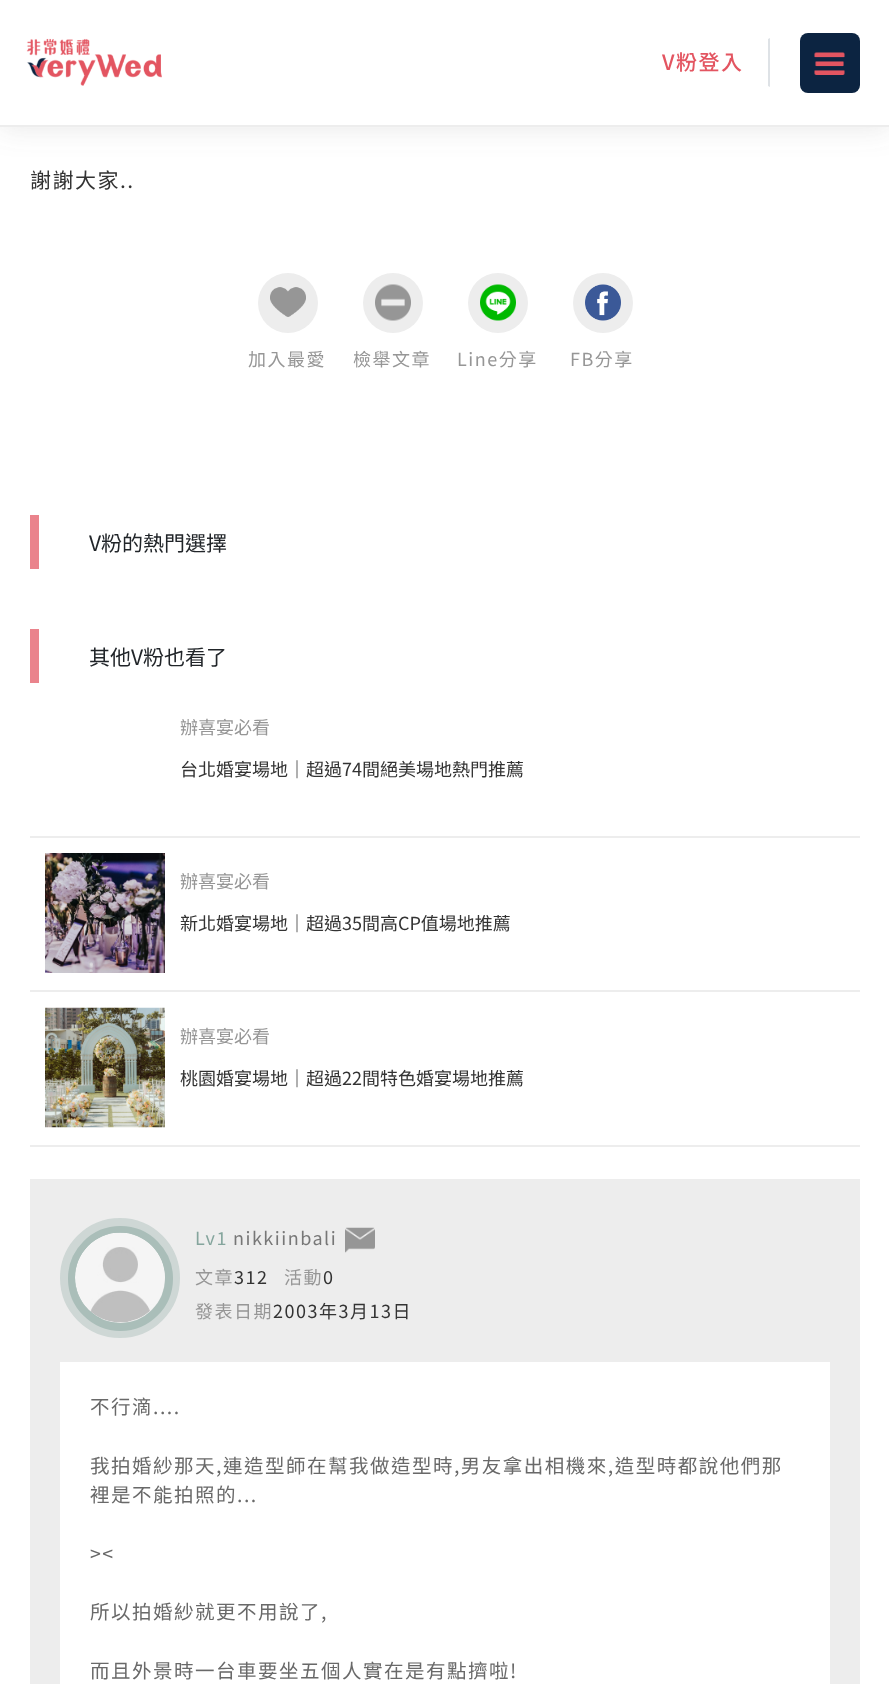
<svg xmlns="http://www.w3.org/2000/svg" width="889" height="1684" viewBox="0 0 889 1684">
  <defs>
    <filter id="blur1" x="-50%" y="-200%" width="200%" height="500%"><feGaussianBlur stdDeviation="15"/></filter>
  </defs>
  <rect width="100%" height="100%" fill="#ffffff"/>
  <rect x="0" y="0" width="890" height="126" fill="#7d7d7d" fill-opacity="0.2" filter="url(#blur1)"/>
  <rect x="0" y="0" width="889" height="125" fill="#ffffff"/>
  <rect x="0" y="125" width="889" height="2" fill="#ededed"/>
  <image x="26" y="38" width="136" height="48" href="img1.png"/>
  <path d="M770 38V87L768 86V39Z" fill="#dee2e6"/>
  <text x="662" y="70" font-family="Noto Sans TC" font-size="21" font-weight="500" letter-spacing="1.5" fill="#e35561">V粉登入</text>
  <rect x="800" y="33" width="60" height="60" rx="8" fill="#0c2441"/>
  <image x="814" y="52" width="31" height="23" href="img2.png"/>
  <text x="30" y="188" font-family="Noto Sans TC" font-size="21" letter-spacing="1.5" fill="#333333">謝謝大家..</text>
  <circle cx="288" cy="303" r="30" fill="#ededed"/>
  <image x="270" y="287" width="36" height="30" href="img3.png"/>
  <text x="248" y="366" font-family="Noto Sans TC" font-size="18" letter-spacing="1.5" fill="#969696">加入最愛</text>
  <circle cx="393" cy="303" r="30" fill="#ededed"/>
  <image x="375" y="284" width="36" height="37" href="img4.png"/>
  <text x="353" y="366" font-family="Noto Sans TC" font-size="18" letter-spacing="1.5" fill="#969696">檢舉文章</text>
  <circle cx="498" cy="303" r="30" fill="#ededed"/>
  <image x="480" y="284" width="36" height="37" href="img5.png"/>
  <text x="457" y="366" font-family="Noto Sans TC" font-size="18" letter-spacing="1.5" fill="#969696">Line分享</text>
  <circle cx="603" cy="303" r="30" fill="#ededed"/>
  <image x="585" y="284" width="36" height="37" href="img6.png"/>
  <text x="570" y="366" font-family="Noto Sans TC" font-size="18" letter-spacing="1.5" fill="#969696">FB分享</text>
  <rect x="30" y="515" width="9" height="54" fill="#ea838c"/>
  <text x="89" y="551" font-family="Noto Sans TC" font-size="21" fill="#212529">V粉的熱門選擇</text>
  <rect x="30" y="629" width="9" height="54" fill="#ea838c"/>
  <text x="89" y="665" font-family="Noto Sans TC" font-size="21" fill="#212529">其他V粉也看了</text>
  <rect x="30" y="836" width="830" height="2" fill="#ededed"/>
  <text x="180" y="734" font-family="Noto Sans TC" font-size="18" fill="#969696">辦喜宴必看</text>
  <text x="180" y="776" font-family="Noto Sans TC" font-size="18" fill="#333333">台北婚宴場地｜超過74間絕美場地熱門推薦</text>
  <rect x="30" y="990" width="830" height="2" fill="#ededed"/>
  <image x="45" y="853" width="120" height="120" href="img7.png"/>
  <text x="180" y="888" font-family="Noto Sans TC" font-size="18" fill="#969696">辦喜宴必看</text>
  <text x="180" y="930" font-family="Noto Sans TC" font-size="18" fill="#333333">新北婚宴場地｜超過35間高CP值場地推薦</text>
  <rect x="30" y="1145" width="830" height="2" fill="#ededed"/>
  <image x="45" y="1007" width="120" height="121" href="img8.png"/>
  <text x="180" y="1043" font-family="Noto Sans TC" font-size="18" fill="#969696">辦喜宴必看</text>
  <text x="180" y="1085" font-family="Noto Sans TC" font-size="18" fill="#333333">桃園婚宴場地｜超過22間特色婚宴場地推薦</text>
  <rect x="30" y="1179" width="830" height="505" fill="#ededed"/>
  <circle cx="120" cy="1278" r="52.5" fill="none" stroke="#ced7d5" stroke-width="15"/>
  <circle cx="120.5" cy="1278.5" r="48.5" fill="none" stroke="#85a59d" stroke-opacity="0.5" stroke-width="8"/>
  <path d="M120 1234C145 1234 165 1254 165 1278C165 1238 116 1218 88 1246C82 1252 78 1260 76 1269C74 1281 76 1293 83 1303C91 1316 105 1323 120 1323C96 1323 76 1303 76 1278C76 1254 96 1234 120 1234Z" fill="#85a59d" fill-opacity="0.5"/>
  <image x="75" y="1232" width="90" height="91" href="img9.png"/>
  <text x="195" y="1245" font-family="Noto Sans TC" font-size="18" letter-spacing="1.5" fill="#85a59d">Lv1</text>
  <text x="233" y="1245" font-family="Noto Sans TC" font-size="18" letter-spacing="1.5" fill="#777777">nikkiinbali</text>
  <image x="345" y="1227" width="30" height="26" href="img10.png"/>
  <text x="195" y="1284" font-family="Noto Sans TC" font-size="18" letter-spacing="1.5" fill="#969696">文章</text>
  <text x="234" y="1284" font-family="Noto Sans TC" font-size="18" letter-spacing="1.5" fill="#333333">312</text>
  <text x="284" y="1284" font-family="Noto Sans TC" font-size="18" letter-spacing="1.5" fill="#969696">活動</text>
  <text x="323" y="1284" font-family="Noto Sans TC" font-size="18" letter-spacing="1.5" fill="#333333">0</text>
  <text x="195" y="1318" font-family="Noto Sans TC" font-size="18" letter-spacing="1.5" fill="#969696">發表日期</text>
  <text x="273" y="1318" font-family="Noto Sans TC" font-size="18" letter-spacing="1.5" fill="#333333">2003年3月13日</text>
  <rect x="60" y="1362" width="770" height="322" fill="#ffffff"/>
  <text x="90" y="1414" font-family="Noto Sans TC" font-size="19.5" letter-spacing="1.5" fill="#696969">不行滴....</text>
  <text x="90" y="1473" font-family="Noto Sans TC" font-size="19.5" letter-spacing="1.5" fill="#696969">我拍婚紗那天,連造型師在幫我做造型時,男友拿出相機來,造型時都說他們那</text>
  <text x="90" y="1502" font-family="Noto Sans TC" font-size="19.5" letter-spacing="1.5" fill="#696969">裡是不能拍照的...</text>
  <text x="90" y="1561" font-family="Noto Sans TC" font-size="19.5" letter-spacing="1.5" fill="#696969">&gt;&lt;</text>
  <text x="90" y="1619" font-family="Noto Sans TC" font-size="19.5" letter-spacing="1.5" fill="#696969">所以拍婚紗就更不用說了,</text>
  <text x="90" y="1678" font-family="Noto Sans TC" font-size="19.5" letter-spacing="1.5" fill="#696969">而且外景時一台車要坐五個人實在是有點擠啦!</text>
</svg>
